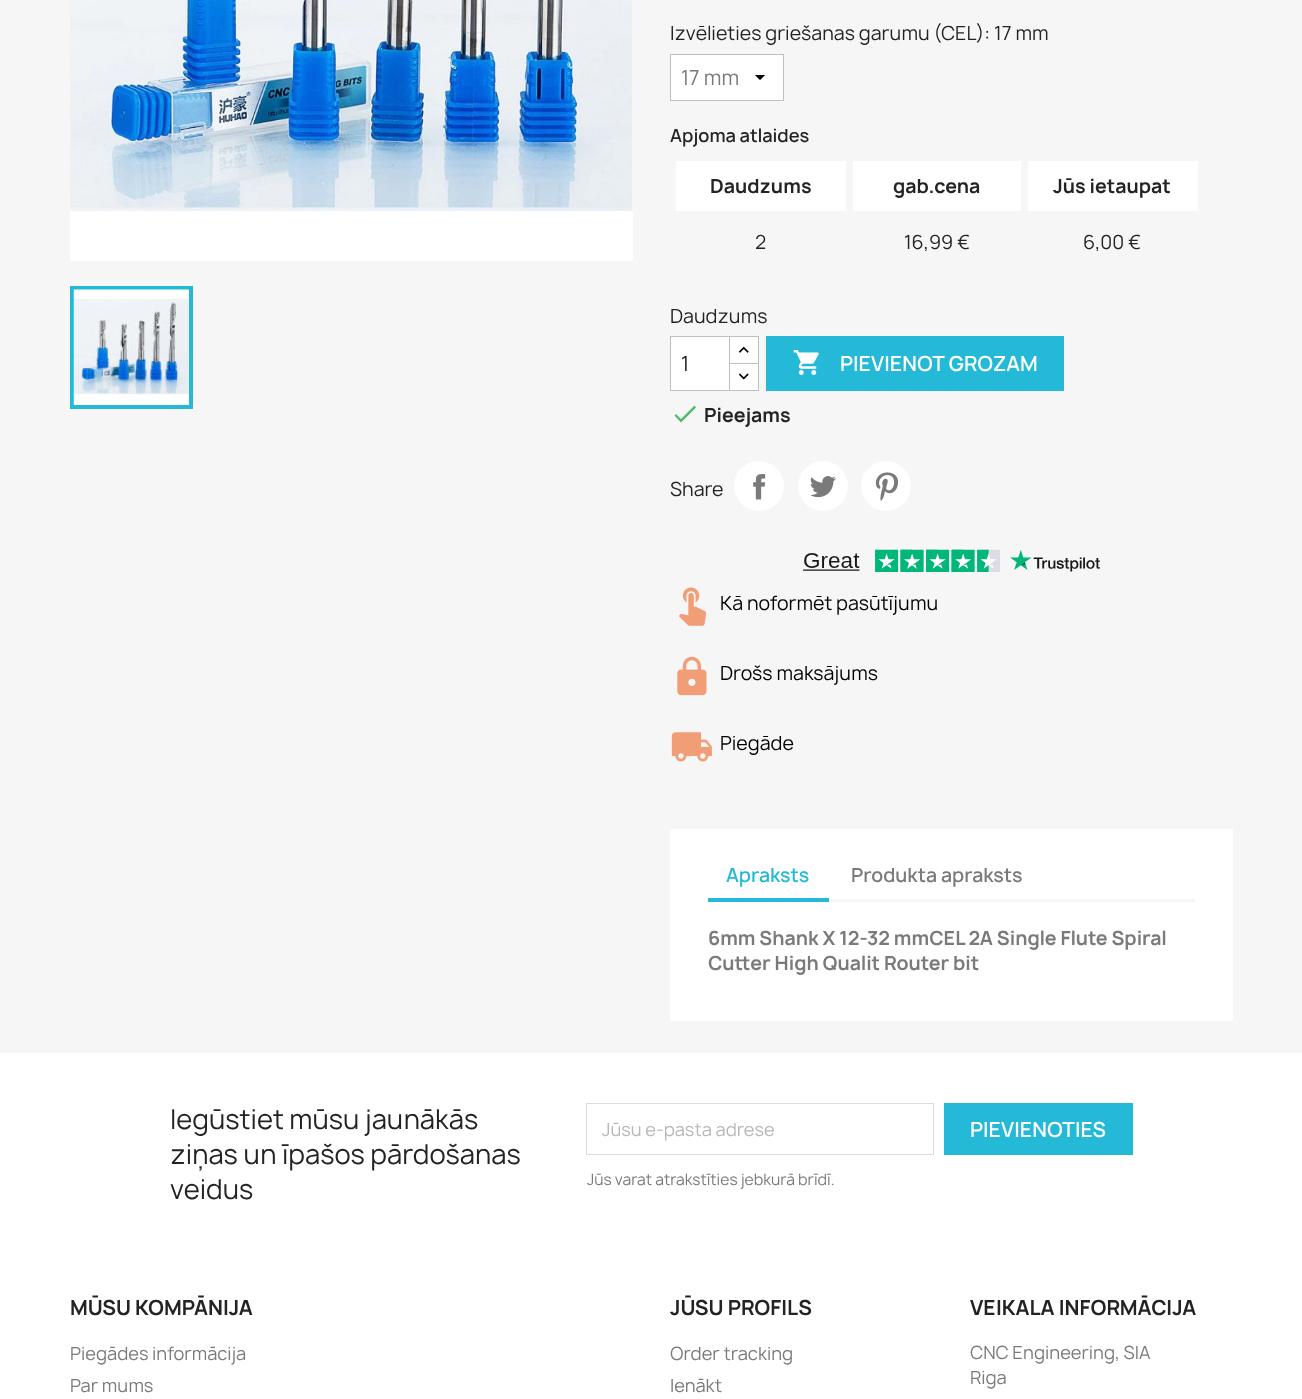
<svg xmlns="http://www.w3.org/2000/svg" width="1302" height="1399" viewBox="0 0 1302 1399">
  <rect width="100%" height="100%" fill="#ffffff"/>
  <rect x="0" y="0" width="1302" height="1053" fill="#f6f6f6"/>
  <rect x="70" y="0" width="563" height="261" fill="#ffffff"/>
  <image x="70" y="0" width="563" height="211" href="img1.png"/>
  <rect x="72" y="288" width="119" height="119" fill="none" stroke="#24b9d7" stroke-width="4"/>
  <image x="73" y="289" width="116" height="116" href="img2.png"/>
  <text x="670" y="40" font-family="Manrope" font-size="18.75" fill="#232323">Izvēlieties griešanas garumu (CEL): 17 mm</text>
  <rect x="671" y="55" width="112" height="45" fill="#ffffff"/>
  <image x="755" y="75" width="10" height="5" href="img3.png"/>
  <rect x="670.5" y="54.5" width="113" height="46" fill="none" stroke="#bfbfbf"/>
  <text x="681" y="85" font-family="Manrope" font-size="20" fill="#7a7a7a">17 mm</text>
  <text x="670" y="142" font-family="Manrope" font-size="17.5" font-weight="600" fill="#232323">Apjoma atlaides</text>
  <rect x="676" y="161" width="170" height="50" fill="#ffffff"/>
  <text x="710" y="193" font-family="Manrope" font-size="18.75" font-weight="bold" fill="#232323">Daudzums</text>
  <rect x="853" y="161" width="168" height="50" fill="#ffffff"/>
  <text x="893" y="193" font-family="Manrope" font-size="18.75" font-weight="bold" fill="#232323">gab.cena</text>
  <rect x="1028" y="161" width="170" height="50" fill="#ffffff"/>
  <text x="1053" y="193" font-family="Manrope" font-size="18.75" font-weight="bold" fill="#232323">Jūs ietaupat</text>
  <text x="755" y="249" font-family="Manrope" font-size="18.75" fill="#232323">2</text>
  <text x="904" y="249" font-family="Manrope" font-size="18.75" fill="#232323">16,99 €</text>
  <text x="1083" y="249" font-family="Manrope" font-size="18.75" fill="#232323">6,00 €</text>
  <text x="670" y="323" font-family="Manrope" font-size="18.75" fill="#232323">Daudzums</text>
  <rect x="730" y="337" width="28" height="26" fill="#ffffff"/>
  <rect x="729.5" y="336.5" width="29" height="28" fill="none" stroke="#bfbfbf"/>
  <rect x="729.5" y="363.5" width="29" height="27" fill="#ffffff" stroke="#bfbfbf"/>
  <rect x="670.5" y="336.5" width="59" height="54" fill="#ffffff" stroke="#bfbfbf"/>
  <text x="681" y="371" font-family="Manrope" font-size="20" fill="#232323">1</text>
  <image x="738" y="346" width="11" height="7" href="img4.png"/>
  <image x="738" y="373" width="11" height="7" href="img5.png"/>
  <rect x="766" y="336" width="298" height="55" fill="#24b9d7"/>
  <image x="793" y="350" width="26" height="25" href="img6.png"/>
  <text x="840" y="371" font-family="Manrope" font-size="20" font-weight="600" fill="#ffffff">PIEVIENOT GROZAM</text>
  <path d="M681 419L694.5 405.5L696 407.5L681 422.5L674.5 415.5L676 414Z" fill="#4cbb6c"/>
  <text x="704" y="422" font-family="Manrope" font-size="18.75" font-weight="bold" fill="#232323">Pieejams</text>
  <text x="670" y="496" font-family="Manrope" font-size="18.75" fill="#232323">Share</text>
  <circle cx="759" cy="486" r="25" fill="#ffffff"/>
  <image x="753" y="474" width="13" height="26" href="img7.png"/>
  <circle cx="823" cy="486" r="25" fill="#ffffff"/>
  <image x="810" y="476" width="26" height="22" href="img8.png"/>
  <circle cx="886" cy="486" r="25" fill="#ffffff"/>
  <image x="875" y="472" width="24" height="29" href="img9.png"/>
  <image x="803" y="549" width="297" height="23" href="img10.png"/>
  <image x="678" y="587" width="29" height="39" href="img11.png"/>
  <text x="720" y="610" font-family="Manrope" font-size="18.75" fill="#000000">Kā noformēt pasūtījumu</text>
  <image x="677" y="656" width="30" height="40" href="img12.png"/>
  <text x="720" y="680" font-family="Manrope" font-size="18.75" fill="#000000">Drošs maksājums</text>
  <image x="671" y="732" width="41" height="30" href="img13.png"/>
  <text x="720" y="750" font-family="Manrope" font-size="18.75" fill="#000000">Piegāde</text>
  <rect x="670" y="829" width="563" height="192" fill="#ffffff"/>
  <rect x="829" y="899" width="366" height="3" fill="#f6f6f6"/>
  <rect x="708" y="898" width="121" height="4" fill="#24b9d7"/>
  <text x="726" y="882" font-family="Manrope" font-size="18.75" font-weight="600" fill="#24b9d7">Apraksts</text>
  <text x="851" y="882" font-family="Manrope" font-size="18.75" font-weight="600" fill="#7a7a7a">Produkta apraksts</text>
  <text x="708" y="945" font-family="Manrope" font-size="18.75" font-weight="bold" fill="#7a7a7a">6mm Shank X 12-32 mmCEL 2A Single Flute Spiral</text>
  <text x="708" y="970" font-family="Manrope" font-size="18.75" font-weight="bold" fill="#7a7a7a">Cutter High Qualit Router bit</text>
  <text x="170" y="1129" font-family="Manrope" font-size="26.25" fill="#232323">Iegūstiet mūsu jaunākās</text>
  <text x="170" y="1164" font-family="Manrope" font-size="26.25" fill="#232323">ziņas un īpašos pārdošanas</text>
  <text x="170" y="1199" font-family="Manrope" font-size="26.25" fill="#232323">veidus</text>
  <rect x="586.5" y="1103.5" width="347" height="51" fill="none" stroke="#dddddd"/>
  <text x="602" y="1136" font-family="Manrope" font-size="17.5" fill="#b7b7b7">Jūsu e-pasta adrese</text>
  <rect x="944" y="1103" width="189" height="52" fill="#24b9d7"/>
  <text x="970" y="1137" font-family="Manrope" font-size="20" font-weight="600" fill="#ffffff">PIEVIENOTIES</text>
  <text x="587" y="1185" font-family="Manrope" font-size="15" fill="#7a7a7a">Jūs varat atrakstīties jebkurā brīdī.</text>
  <text x="70" y="1315" font-family="Manrope" font-size="20" font-weight="bold" fill="#232323">MŪSU KOMPĀNIJA</text>
  <text x="70" y="1360" font-family="Manrope" font-size="17.5" fill="#7a7a7a">Piegādes informācija</text>
  <text x="70" y="1392" font-family="Manrope" font-size="17.5" fill="#7a7a7a">Par mums</text>
  <text x="670" y="1315" font-family="Manrope" font-size="20" font-weight="bold" fill="#232323">JŪSU PROFILS</text>
  <text x="670" y="1360" font-family="Manrope" font-size="17.5" fill="#7a7a7a">Order tracking</text>
  <text x="670" y="1392" font-family="Manrope" font-size="17.5" fill="#7a7a7a">Ienākt</text>
  <text x="970" y="1315" font-family="Manrope" font-size="20" font-weight="bold" fill="#232323">VEIKALA INFORMĀCIJA</text>
  <text x="970" y="1359" font-family="Manrope" font-size="17.5" fill="#7a7a7a">CNC Engineering, SIA</text>
  <text x="970" y="1384" font-family="Manrope" font-size="17.5" fill="#7a7a7a">Riga</text>
</svg>
